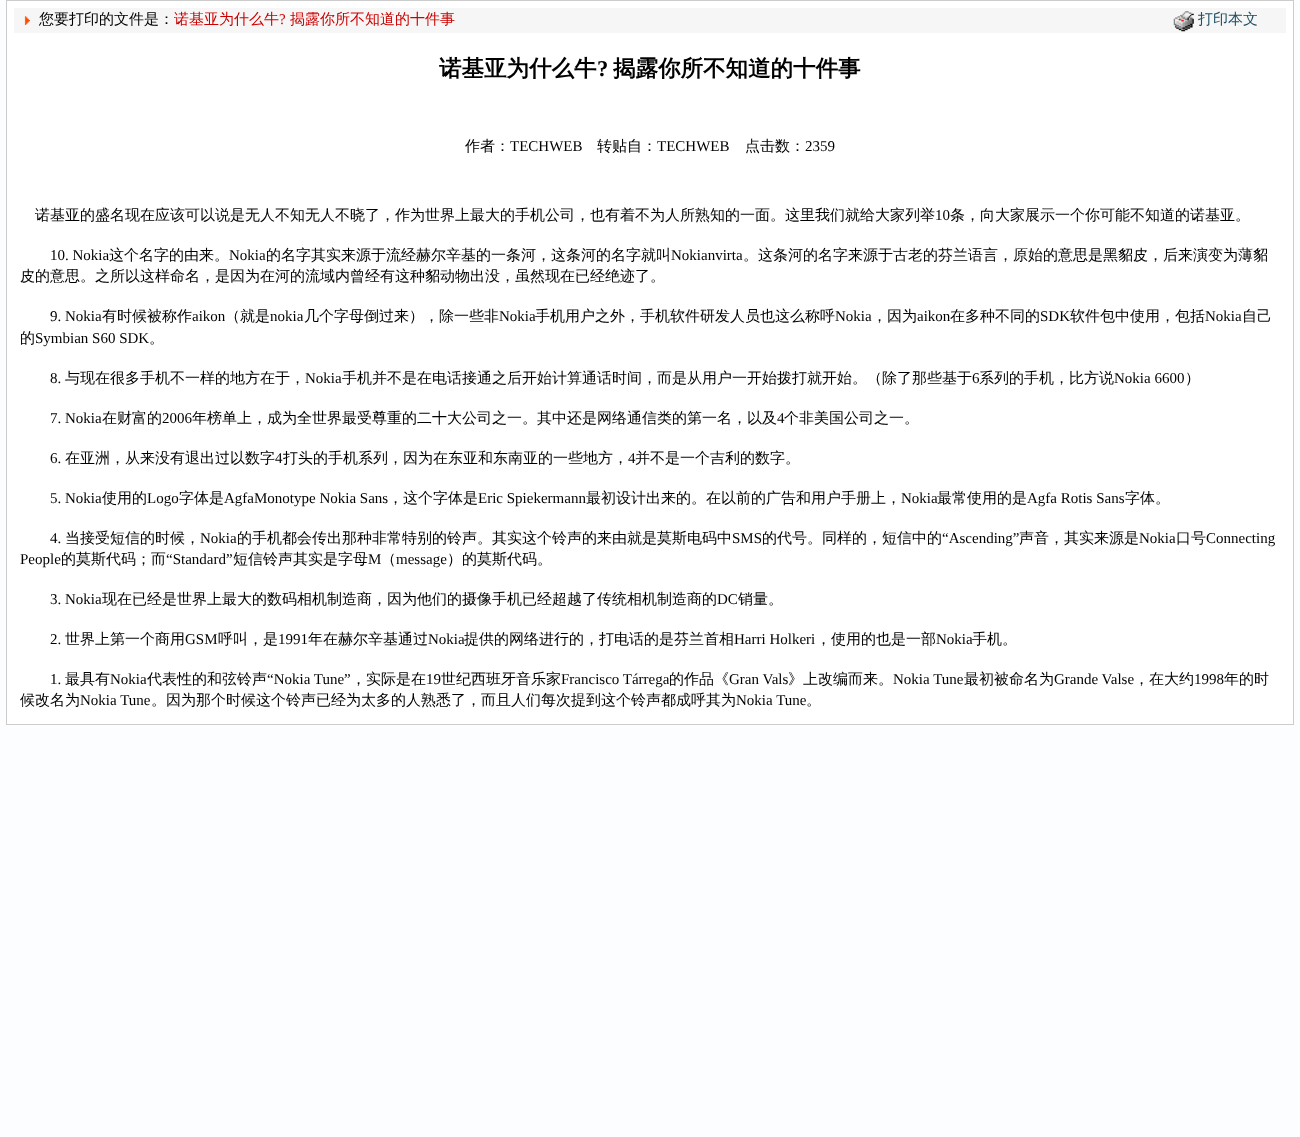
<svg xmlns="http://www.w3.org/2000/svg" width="1300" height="1137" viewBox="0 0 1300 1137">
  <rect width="100%" height="100%" fill="#fbfdff"/>
  <rect x="6.5" y="0.5" width="1287" height="724" fill="#ffffff" stroke="#cccccc"/>
  <rect x="14" y="8" width="1272" height="25" fill="#f6f6f6"/>
  <image x="24" y="16" width="6" height="9" href="img1.png"/>
  <text x="39" y="24" font-family="WenQuanYi Zen Hei" font-size="15" font-weight="500" fill="#000000">您要打印的文件是：</text>
  <text x="174" y="24" font-family="WenQuanYi Zen Hei" font-size="15" font-weight="500" fill="#cc0000">诺基亚为什么牛</text>
  <text x="279" y="24" font-family="Liberation Serif" font-size="15" fill="#cc0000">?</text>
  <text x="290" y="24" font-family="WenQuanYi Zen Hei" font-size="15" font-weight="500" fill="#cc0000">揭露你所不知道的十件事</text>
  <image x="1173" y="11" width="21" height="21" href="img2.png"/>
  <text x="1198" y="24" font-family="WenQuanYi Zen Hei" font-size="15" font-weight="500" fill="#205064">打印本文</text>
  <text x="439" y="76" font-family="WenQuanYi Zen Hei" font-size="22.5" font-weight="bold" fill="#000000">诺基亚为什么牛</text>
  <text x="597" y="76" font-family="Liberation Serif" font-size="22.5" font-weight="bold" fill="#000000">?</text>
  <text x="613" y="76" font-family="WenQuanYi Zen Hei" font-size="22.5" font-weight="bold" fill="#000000">揭露你所不知道的十件事</text>
  <text x="465" y="151" font-family="WenQuanYi Zen Hei" font-size="15" font-weight="500" fill="#000000">作者：</text>
  <text x="510" y="151" font-family="Liberation Serif" font-size="15" fill="#000000">TECHWEB</text>
  <text x="597" y="151" font-family="WenQuanYi Zen Hei" font-size="15" font-weight="500" fill="#000000">转贴自：</text>
  <text x="657" y="151" font-family="Liberation Serif" font-size="15" fill="#000000">TECHWEB</text>
  <text x="745" y="151" font-family="WenQuanYi Zen Hei" font-size="15" font-weight="500" fill="#000000">点击数：</text>
  <text x="805" y="151" font-family="Liberation Serif" font-size="15" fill="#000000">2359</text>
  <text x="35" y="220" font-family="WenQuanYi Zen Hei" font-size="15" font-weight="500" fill="#000000">诺基亚的盛名现在应该可以说是无人不知无人不晓了，作为世界上最大的手机公司，也有着不为人所熟知的一面。这里我们就给大家列举</text>
  <text x="935" y="220" font-family="Liberation Serif" font-size="15" fill="#000000">10</text>
  <text x="950" y="220" font-family="WenQuanYi Zen Hei" font-size="15" font-weight="500" fill="#000000">条，向大家展示一个你可能不知道的诺基亚。</text>
  <text x="50" y="260" font-family="Liberation Serif" font-size="15" fill="#000000">10. Nokia</text>
  <text x="109" y="260" font-family="WenQuanYi Zen Hei" font-size="15" font-weight="500" fill="#000000">这个名字的由来。</text>
  <text x="229" y="260" font-family="Liberation Serif" font-size="15" fill="#000000">Nokia</text>
  <text x="266" y="260" font-family="WenQuanYi Zen Hei" font-size="15" font-weight="500" fill="#000000">的名字其实来源于流经赫尔辛基的一条河，这条河的名字就叫</text>
  <text x="671" y="260" font-family="Liberation Serif" font-size="15" fill="#000000">Nokianvirta</text>
  <text x="743" y="260" font-family="WenQuanYi Zen Hei" font-size="15" font-weight="500" fill="#000000">。这条河的名字来源于古老的芬兰语言，原始的意思是黑貂皮，后来演变为薄貂</text>
  <text x="20" y="281" font-family="WenQuanYi Zen Hei" font-size="15" font-weight="500" fill="#000000">皮的意思。之所以这样命名，是因为在河的流域内曾经有这种貂动物出没，虽然现在已经绝迹了。</text>
  <text x="50" y="321" font-family="Liberation Serif" font-size="15" fill="#000000">9. Nokia</text>
  <text x="102" y="321" font-family="WenQuanYi Zen Hei" font-size="15" font-weight="500" fill="#000000">有时候被称作</text>
  <text x="192" y="321" font-family="Liberation Serif" font-size="15" fill="#000000">aikon</text>
  <text x="225" y="321" font-family="WenQuanYi Zen Hei" font-size="15" font-weight="500" fill="#000000">（就是</text>
  <text x="270" y="321" font-family="Liberation Serif" font-size="15" fill="#000000">nokia</text>
  <text x="304" y="321" font-family="WenQuanYi Zen Hei" font-size="15" font-weight="500" fill="#000000">几个字母倒过来），除一些非</text>
  <text x="499" y="321" font-family="Liberation Serif" font-size="15" fill="#000000">Nokia</text>
  <text x="535" y="321" font-family="WenQuanYi Zen Hei" font-size="15" font-weight="500" fill="#000000">手机用户之外，手机软件研发人员也这么称呼</text>
  <text x="835" y="321" font-family="Liberation Serif" font-size="15" fill="#000000">Nokia</text>
  <text x="872" y="321" font-family="WenQuanYi Zen Hei" font-size="15" font-weight="500" fill="#000000">，因为</text>
  <text x="917" y="321" font-family="Liberation Serif" font-size="15" fill="#000000">aikon</text>
  <text x="950" y="321" font-family="WenQuanYi Zen Hei" font-size="15" font-weight="500" fill="#000000">在多种不同的</text>
  <text x="1040" y="321" font-family="Liberation Serif" font-size="15" fill="#000000">SDK</text>
  <text x="1070" y="321" font-family="WenQuanYi Zen Hei" font-size="15" font-weight="500" fill="#000000">软件包中使用，包括</text>
  <text x="1205" y="321" font-family="Liberation Serif" font-size="15" fill="#000000">Nokia</text>
  <text x="1242" y="321" font-family="WenQuanYi Zen Hei" font-size="15" font-weight="500" fill="#000000">自己</text>
  <text x="20" y="343" font-family="WenQuanYi Zen Hei" font-size="15" font-weight="500" fill="#000000">的</text>
  <text x="35" y="343" font-family="Liberation Serif" font-size="15" fill="#000000">Symbian S60 SDK</text>
  <text x="149" y="343" font-family="WenQuanYi Zen Hei" font-size="15" font-weight="500" fill="#000000">。</text>
  <text x="50" y="383" font-family="Liberation Serif" font-size="15" fill="#000000">8.</text>
  <text x="65" y="383" font-family="WenQuanYi Zen Hei" font-size="15" font-weight="500" fill="#000000">与现在很多手机不一样的地方在于，</text>
  <text x="305" y="383" font-family="Liberation Serif" font-size="15" fill="#000000">Nokia</text>
  <text x="342" y="383" font-family="WenQuanYi Zen Hei" font-size="15" font-weight="500" fill="#000000">手机并不是在电话接通之后开始计算通话时间，而是从用户一开始拨打就开始。（除了那些基于</text>
  <text x="972" y="383" font-family="Liberation Serif" font-size="15" fill="#000000">6</text>
  <text x="979" y="383" font-family="WenQuanYi Zen Hei" font-size="15" font-weight="500" fill="#000000">系列的手机，比方说</text>
  <text x="1114" y="383" font-family="Liberation Serif" font-size="15" fill="#000000">Nokia 6600</text>
  <text x="1185" y="383" font-family="WenQuanYi Zen Hei" font-size="15" font-weight="500" fill="#000000">）</text>
  <text x="50" y="423" font-family="Liberation Serif" font-size="15" fill="#000000">7. Nokia</text>
  <text x="102" y="423" font-family="WenQuanYi Zen Hei" font-size="15" font-weight="500" fill="#000000">在财富的</text>
  <text x="162" y="423" font-family="Liberation Serif" font-size="15" fill="#000000">2006</text>
  <text x="192" y="423" font-family="WenQuanYi Zen Hei" font-size="15" font-weight="500" fill="#000000">年榜单上，成为全世界最受尊重的二十大公司之一。其中还是网络通信类的第一名，以及</text>
  <text x="777" y="423" font-family="Liberation Serif" font-size="15" fill="#000000">4</text>
  <text x="784" y="423" font-family="WenQuanYi Zen Hei" font-size="15" font-weight="500" fill="#000000">个非美国公司之一。</text>
  <text x="50" y="463" font-family="Liberation Serif" font-size="15" fill="#000000">6.</text>
  <text x="65" y="463" font-family="WenQuanYi Zen Hei" font-size="15" font-weight="500" fill="#000000">在亚洲，从来没有退出过以数字</text>
  <text x="275" y="463" font-family="Liberation Serif" font-size="15" fill="#000000">4</text>
  <text x="283" y="463" font-family="WenQuanYi Zen Hei" font-size="15" font-weight="500" fill="#000000">打头的手机系列，因为在东亚和东南亚的一些地方，</text>
  <text x="628" y="463" font-family="Liberation Serif" font-size="15" fill="#000000">4</text>
  <text x="635" y="463" font-family="WenQuanYi Zen Hei" font-size="15" font-weight="500" fill="#000000">并不是一个吉利的数字。</text>
  <text x="50" y="503" font-family="Liberation Serif" font-size="15" fill="#000000">5. Nokia</text>
  <text x="102" y="503" font-family="WenQuanYi Zen Hei" font-size="15" font-weight="500" fill="#000000">使用的</text>
  <text x="147" y="503" font-family="Liberation Serif" font-size="15" fill="#000000">Logo</text>
  <text x="179" y="503" font-family="WenQuanYi Zen Hei" font-size="15" font-weight="500" fill="#000000">字体是</text>
  <text x="224" y="503" font-family="Liberation Serif" font-size="15" fill="#000000">AgfaMonotype Nokia Sans</text>
  <text x="388" y="503" font-family="WenQuanYi Zen Hei" font-size="15" font-weight="500" fill="#000000">，这个字体是</text>
  <text x="478" y="503" font-family="Liberation Serif" font-size="15" fill="#000000">Eric Spiekermann</text>
  <text x="586" y="503" font-family="WenQuanYi Zen Hei" font-size="15" font-weight="500" fill="#000000">最初设计出来的。在以前的广告和用户手册上，</text>
  <text x="901" y="503" font-family="Liberation Serif" font-size="15" fill="#000000">Nokia</text>
  <text x="937" y="503" font-family="WenQuanYi Zen Hei" font-size="15" font-weight="500" fill="#000000">最常使用的是</text>
  <text x="1027" y="503" font-family="Liberation Serif" font-size="15" fill="#000000">Agfa Rotis Sans</text>
  <text x="1125" y="503" font-family="WenQuanYi Zen Hei" font-size="15" font-weight="500" fill="#000000">字体。</text>
  <text x="50" y="543" font-family="Liberation Serif" font-size="15" fill="#000000">4.</text>
  <text x="65" y="543" font-family="WenQuanYi Zen Hei" font-size="15" font-weight="500" fill="#000000">当接受短信的时候，</text>
  <text x="200" y="543" font-family="Liberation Serif" font-size="15" fill="#000000">Nokia</text>
  <text x="237" y="543" font-family="WenQuanYi Zen Hei" font-size="15" font-weight="500" fill="#000000">的手机都会传出那种非常特别的铃声。其实这个铃声的来由就是莫斯电码中</text>
  <text x="732" y="543" font-family="Liberation Serif" font-size="15" fill="#000000">SMS</text>
  <text x="762" y="543" font-family="WenQuanYi Zen Hei" font-size="15" font-weight="500" fill="#000000">的代号。同样的，短信中的</text>
  <text x="942" y="543" font-family="Liberation Serif" font-size="15" fill="#000000">“Ascending”</text>
  <text x="1019" y="543" font-family="WenQuanYi Zen Hei" font-size="15" font-weight="500" fill="#000000">声音，其实来源是</text>
  <text x="1139" y="543" font-family="Liberation Serif" font-size="15" fill="#000000">Nokia</text>
  <text x="1176" y="543" font-family="WenQuanYi Zen Hei" font-size="15" font-weight="500" fill="#000000">口号</text>
  <text x="1206" y="543" font-family="Liberation Serif" font-size="15" fill="#000000">Connecting</text>
  <text x="20" y="564" font-family="Liberation Serif" font-size="15" fill="#000000">People</text>
  <text x="61" y="564" font-family="WenQuanYi Zen Hei" font-size="15" font-weight="500" fill="#000000">的莫斯代码；而</text>
  <text x="166" y="564" font-family="Liberation Serif" font-size="15" fill="#000000">“Standard”</text>
  <text x="233" y="564" font-family="WenQuanYi Zen Hei" font-size="15" font-weight="500" fill="#000000">短信铃声其实是字母</text>
  <text x="368" y="564" font-family="Liberation Serif" font-size="15" fill="#000000">M</text>
  <text x="381" y="564" font-family="WenQuanYi Zen Hei" font-size="15" font-weight="500" fill="#000000">（</text>
  <text x="396" y="564" font-family="Liberation Serif" font-size="15" fill="#000000">message</text>
  <text x="447" y="564" font-family="WenQuanYi Zen Hei" font-size="15" font-weight="500" fill="#000000">）的莫斯代码。</text>
  <text x="50" y="604" font-family="Liberation Serif" font-size="15" fill="#000000">3. Nokia</text>
  <text x="102" y="604" font-family="WenQuanYi Zen Hei" font-size="15" font-weight="500" fill="#000000">现在已经是世界上最大的数码相机制造商，因为他们的摄像手机已经超越了传统相机制造商的</text>
  <text x="717" y="604" font-family="Liberation Serif" font-size="15" fill="#000000">DC</text>
  <text x="738" y="604" font-family="WenQuanYi Zen Hei" font-size="15" font-weight="500" fill="#000000">销量。</text>
  <text x="50" y="644" font-family="Liberation Serif" font-size="15" fill="#000000">2.</text>
  <text x="65" y="644" font-family="WenQuanYi Zen Hei" font-size="15" font-weight="500" fill="#000000">世界上第一个商用</text>
  <text x="185" y="644" font-family="Liberation Serif" font-size="15" fill="#000000">GSM</text>
  <text x="218" y="644" font-family="WenQuanYi Zen Hei" font-size="15" font-weight="500" fill="#000000">呼叫，是</text>
  <text x="278" y="644" font-family="Liberation Serif" font-size="15" fill="#000000">1991</text>
  <text x="308" y="644" font-family="WenQuanYi Zen Hei" font-size="15" font-weight="500" fill="#000000">年在赫尔辛基通过</text>
  <text x="428" y="644" font-family="Liberation Serif" font-size="15" fill="#000000">Nokia</text>
  <text x="464" y="644" font-family="WenQuanYi Zen Hei" font-size="15" font-weight="500" fill="#000000">提供的网络进行的，打电话的是芬兰首相</text>
  <text x="734" y="644" font-family="Liberation Serif" font-size="15" fill="#000000">Harri Holkeri</text>
  <text x="816" y="644" font-family="WenQuanYi Zen Hei" font-size="15" font-weight="500" fill="#000000">，使用的也是一部</text>
  <text x="936" y="644" font-family="Liberation Serif" font-size="15" fill="#000000">Nokia</text>
  <text x="972" y="644" font-family="WenQuanYi Zen Hei" font-size="15" font-weight="500" fill="#000000">手机。</text>
  <text x="50" y="684" font-family="Liberation Serif" font-size="15" fill="#000000">1.</text>
  <text x="65" y="684" font-family="WenQuanYi Zen Hei" font-size="15" font-weight="500" fill="#000000">最具有</text>
  <text x="110" y="684" font-family="Liberation Serif" font-size="15" fill="#000000">Nokia</text>
  <text x="147" y="684" font-family="WenQuanYi Zen Hei" font-size="15" font-weight="500" fill="#000000">代表性的和弦铃声</text>
  <text x="267" y="684" font-family="Liberation Serif" font-size="15" fill="#000000">“Nokia Tune”</text>
  <text x="351" y="684" font-family="WenQuanYi Zen Hei" font-size="15" font-weight="500" fill="#000000">，实际是在</text>
  <text x="426" y="684" font-family="Liberation Serif" font-size="15" fill="#000000">19</text>
  <text x="441" y="684" font-family="WenQuanYi Zen Hei" font-size="15" font-weight="500" fill="#000000">世纪西班牙音乐家</text>
  <text x="561" y="684" font-family="Liberation Serif" font-size="15" fill="#000000">Francisco Tárrega</text>
  <text x="669" y="684" font-family="WenQuanYi Zen Hei" font-size="15" font-weight="500" fill="#000000">的作品《</text>
  <text x="729" y="684" font-family="Liberation Serif" font-size="15" fill="#000000">Gran Vals</text>
  <text x="788" y="684" font-family="WenQuanYi Zen Hei" font-size="15" font-weight="500" fill="#000000">》上改编而来。</text>
  <text x="893" y="684" font-family="Liberation Serif" font-size="15" fill="#000000">Nokia Tune</text>
  <text x="964" y="684" font-family="WenQuanYi Zen Hei" font-size="15" font-weight="500" fill="#000000">最初被命名为</text>
  <text x="1054" y="684" font-family="Liberation Serif" font-size="15" fill="#000000">Grande Valse</text>
  <text x="1134" y="684" font-family="WenQuanYi Zen Hei" font-size="15" font-weight="500" fill="#000000">，在大约</text>
  <text x="1194" y="684" font-family="Liberation Serif" font-size="15" fill="#000000">1998</text>
  <text x="1224" y="684" font-family="WenQuanYi Zen Hei" font-size="15" font-weight="500" fill="#000000">年的时</text>
  <text x="20" y="705" font-family="WenQuanYi Zen Hei" font-size="15" font-weight="500" fill="#000000">候改名为</text>
  <text x="80" y="705" font-family="Liberation Serif" font-size="15" fill="#000000">Nokia Tune</text>
  <text x="151" y="705" font-family="WenQuanYi Zen Hei" font-size="15" font-weight="500" fill="#000000">。因为那个时候这个铃声已经为太多的人熟悉了，而且人们每次提到这个铃声都成呼其为</text>
  <text x="736" y="705" font-family="Liberation Serif" font-size="15" fill="#000000">Nokia Tune</text>
  <text x="806" y="705" font-family="WenQuanYi Zen Hei" font-size="15" font-weight="500" fill="#000000">。</text>
</svg>
